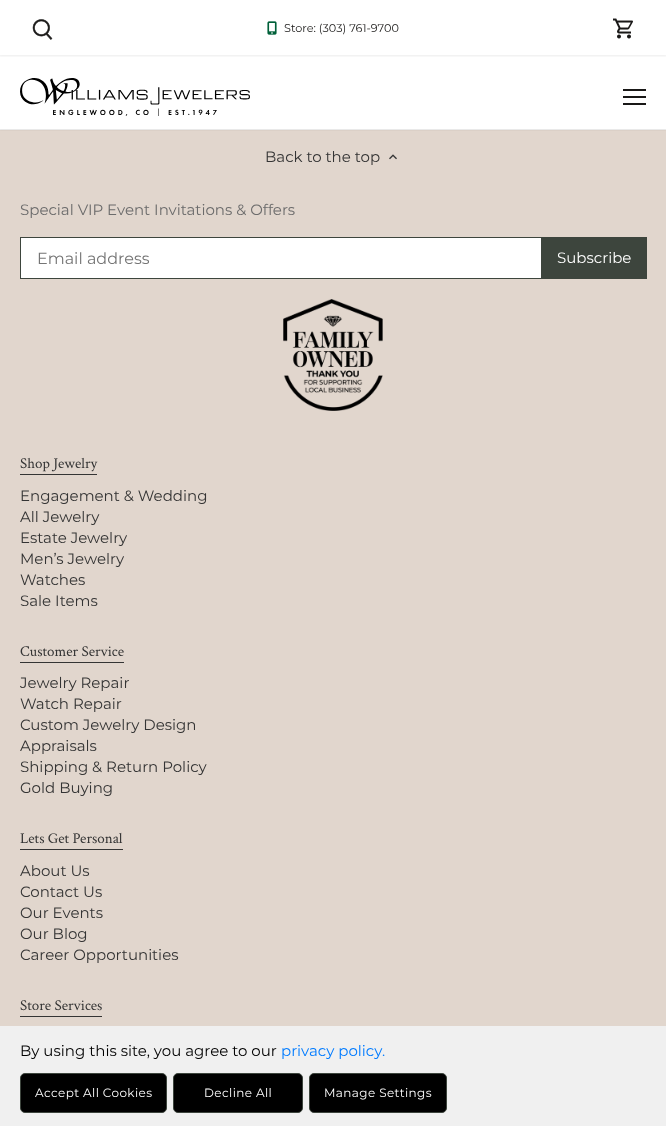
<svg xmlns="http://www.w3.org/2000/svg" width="666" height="1126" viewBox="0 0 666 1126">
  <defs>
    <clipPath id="clip1"><rect x="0" y="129" width="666" height="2"/></clipPath>
    <filter id="blur1" x="-50%" y="-200%" width="200%" height="500%"><feGaussianBlur stdDeviation="1.5"/></filter>
    <clipPath id="clip2"><rect x="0" y="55" width="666" height="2"/></clipPath>
  </defs>
  <rect width="100%" height="100%" fill="#e1d6cd"/>
  <rect x="0" y="0" width="666" height="129" fill="#ffffff"/>
  <rect x="0" y="129" width="666" height="1" fill="#f5f5f5"/>
  <g clip-path="url(#clip1)">
    <rect x="-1" y="-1" width="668" height="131" fill="#000000" fill-opacity="0.08" filter="url(#blur1)"/>
  </g>
  <g clip-path="url(#clip2)">
    <rect x="-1" y="-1" width="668" height="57" fill="#000000" fill-opacity="0.08" filter="url(#blur1)"/>
  </g>
  <image x="32" y="19" width="21" height="21" href="img1.png"/>
  <image x="267" y="21" width="10" height="14" href="img2.png"/>
  <text x="284" y="32" font-family="Montserrat" font-size="11.25" fill="#191817">Store: (303) 761-9700</text>
  <image x="613" y="18" width="20" height="21" href="img3.png"/>
  <image x="20" y="78" width="230" height="38" href="img4.png"/>
  <rect x="623" y="89" width="23" height="2" fill="#191817"/>
  <rect x="623" y="96" width="23" height="2" fill="#191817"/>
  <rect x="623" y="103" width="23" height="2" fill="#191817"/>
  <text x="265" y="162" font-family="Montserrat" font-size="15" fill="#343434">Back to the top</text>
  <image x="389" y="154" width="8" height="6" href="img5.png"/>
  <text x="20" y="215" font-family="Montserrat" font-size="15" fill="#6b6b6b">Special VIP Event Invitations &amp; Offers</text>
  <rect x="21" y="238" width="520" height="40" fill="#ffffff"/>
  <rect x="20.5" y="237.5" width="625" height="41" fill="none" stroke="#3d453d"/>
  <text x="37" y="264" font-family="Montserrat" font-size="16" fill="#757575">Email address</text>
  <rect x="541" y="237" width="106" height="42" fill="#3d453d"/>
  <text x="557" y="263" font-family="Montserrat" font-size="15" fill="#ffffff">Subscribe</text>
  <image x="283" y="299" width="100" height="112" href="img6.png"/>
  <text x="20" y="468" font-family="Crimson Text" font-size="15" fill="#343434">Shop Jewelry</text>
  <rect x="20" y="474" width="77" height="1" fill="#343434"/>
  <text x="20" y="501" font-family="Montserrat" font-size="15" fill="#343434">Engagement &amp; Wedding</text>
  <text x="20" y="522" font-family="Montserrat" font-size="15" fill="#343434">All Jewelry</text>
  <text x="20" y="543" font-family="Montserrat" font-size="15" fill="#343434">Estate Jewelry</text>
  <text x="20" y="564" font-family="Montserrat" font-size="15" fill="#343434">Men’s Jewelry</text>
  <text x="20" y="585" font-family="Montserrat" font-size="15" fill="#343434">Watches</text>
  <text x="20" y="606" font-family="Montserrat" font-size="15" fill="#343434">Sale Items</text>
  <text x="20" y="656" font-family="Crimson Text" font-size="15" fill="#343434">Customer Service</text>
  <rect x="20" y="662" width="104" height="1" fill="#343434"/>
  <text x="20" y="688" font-family="Montserrat" font-size="15" fill="#343434">Jewelry Repair</text>
  <text x="20" y="709" font-family="Montserrat" font-size="15" fill="#343434">Watch Repair</text>
  <text x="20" y="730" font-family="Montserrat" font-size="15" fill="#343434">Custom Jewelry Design</text>
  <text x="20" y="751" font-family="Montserrat" font-size="15" fill="#343434">Appraisals</text>
  <text x="20" y="772" font-family="Montserrat" font-size="15" fill="#343434">Shipping &amp; Return Policy</text>
  <text x="20" y="793" font-family="Montserrat" font-size="15" fill="#343434">Gold Buying</text>
  <text x="20" y="843" font-family="Crimson Text" font-size="15" fill="#343434">Lets Get Personal</text>
  <rect x="20" y="849" width="103" height="1" fill="#343434"/>
  <text x="20" y="876" font-family="Montserrat" font-size="15" fill="#343434">About Us</text>
  <text x="20" y="897" font-family="Montserrat" font-size="15" fill="#343434">Contact Us</text>
  <text x="20" y="918" font-family="Montserrat" font-size="15" fill="#343434">Our Events</text>
  <text x="20" y="939" font-family="Montserrat" font-size="15" fill="#343434">Our Blog</text>
  <text x="20" y="960" font-family="Montserrat" font-size="15" fill="#343434">Career Opportunities</text>
  <text x="20" y="1010" font-family="Crimson Text" font-size="15" fill="#343434">Store Services</text>
  <rect x="20" y="1016" width="82" height="1" fill="#343434"/>
  <rect x="0" y="1026" width="666" height="100" fill="#f0f0f0"/>
  <text x="20" y="1056" font-family="Montserrat" font-size="15" fill="#000000">By using this site, you agree to our</text>
  <text x="281" y="1056" font-family="Montserrat" font-size="15" fill="#007bff">privacy policy.</text>
  <rect x="20.5" y="1073.5" width="146" height="39" rx="4.5" fill="#000000" stroke="#3d453d"/>
  <text x="35" y="1097" font-family="Montserrat" font-size="12" letter-spacing="0.4" fill="#ffffff">Accept All Cookies</text>
  <rect x="173.5" y="1073.5" width="129" height="39" rx="4.5" fill="#000000" stroke="#3d453d"/>
  <text x="204" y="1097" font-family="Montserrat" font-size="12" letter-spacing="0.4" fill="#ffffff">Decline All</text>
  <rect x="309.5" y="1073.5" width="137" height="39" rx="4.5" fill="#000000" stroke="#3d453d"/>
  <text x="324" y="1097" font-family="Montserrat" font-size="12" letter-spacing="0.4" fill="#ffffff">Manage Settings</text>
</svg>
